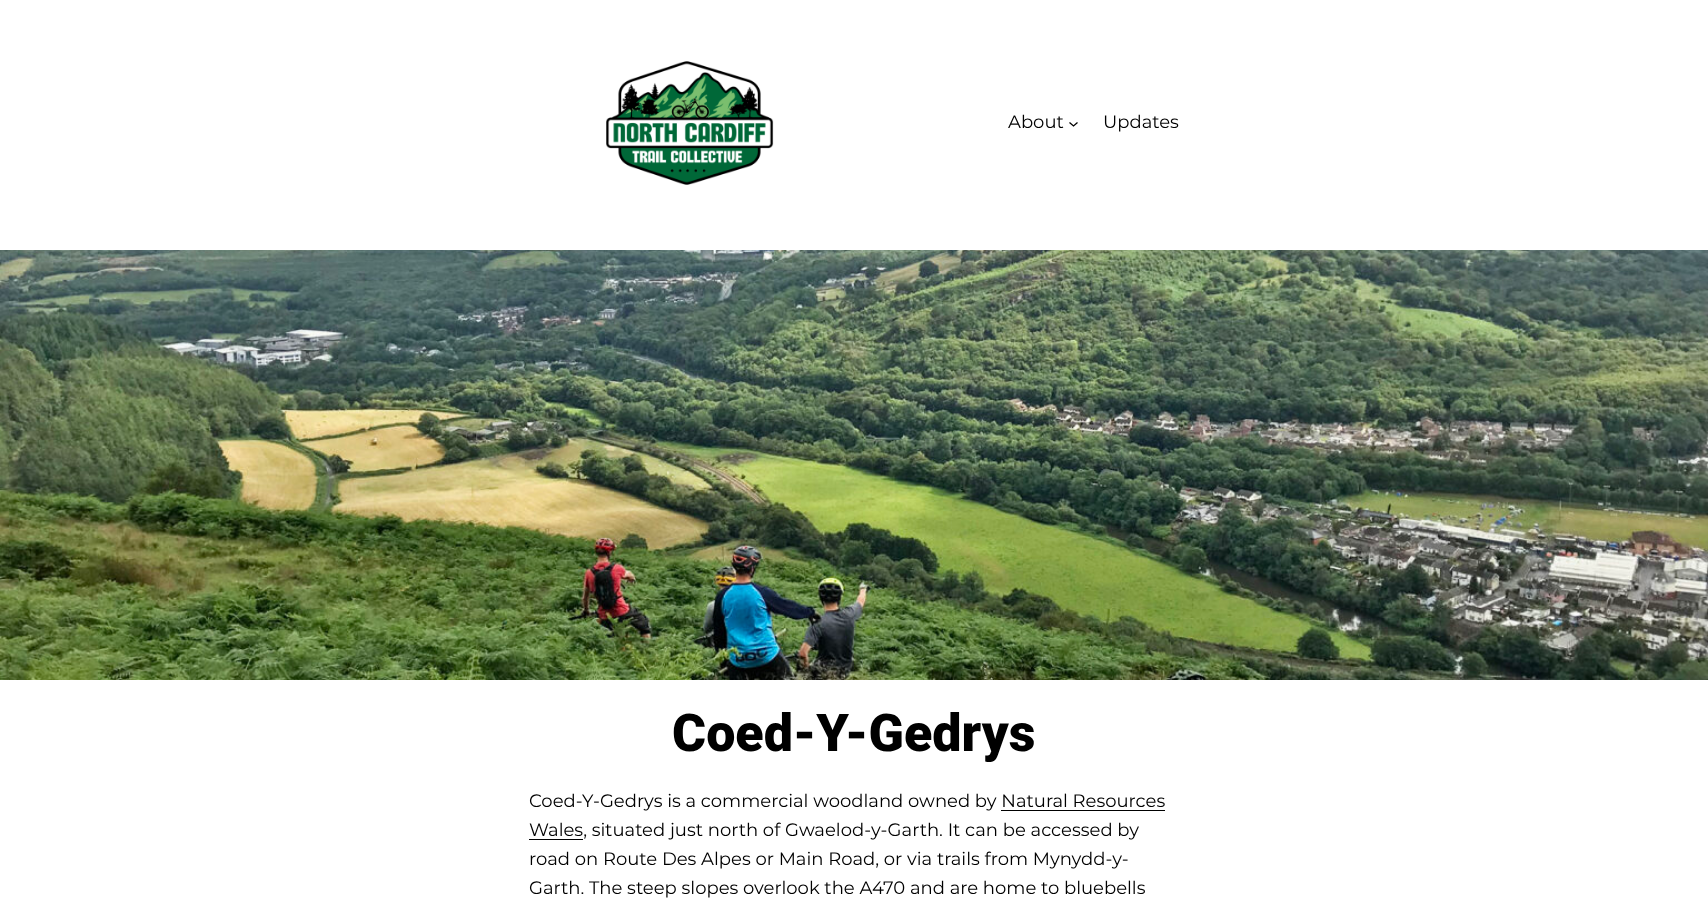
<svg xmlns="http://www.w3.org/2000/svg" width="1708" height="913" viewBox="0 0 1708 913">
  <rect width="100%" height="100%" fill="#ffffff"/>
  <image x="606" y="61" width="168" height="124" href="img1.png"/>
  <text x="1008" y="128" font-family="Montserrat" font-size="18" fill="#000000">About</text>
  <path d="M1069.5 122.5L1073.5 126L1077.5 122.5" fill="none" stroke="#000000" stroke-width="1.3"/>
  <text x="1103" y="128" font-family="Montserrat" font-size="18" fill="#000000">Updates</text>
  <image x="0" y="250" width="1708" height="430" href="img2.png"/>
  <text x="672" y="751" font-family="Roboto" font-size="52" font-weight="900" fill="#000000">Coed-Y-Gedrys</text>
  <text x="529" y="807" font-family="Montserrat" font-size="18" fill="#000000">Coed-Y-Gedrys is a commercial woodland owned by Natural Resources</text>
  <rect x="529" y="839" width="54" height="1" fill="#000000"/>
  <text x="529" y="836" font-family="Montserrat" font-size="18" fill="#000000">Wales, situated just north of Gwaelod-y-Garth. It can be accessed by</text>
  <rect x="1001" y="810" width="164" height="1" fill="#000000"/>
  <text x="529" y="865" font-family="Montserrat" font-size="18" fill="#000000">road on Route Des Alpes or Main Road, or via trails from Mynydd-y-</text>
  <text x="529" y="894" font-family="Montserrat" font-size="18" fill="#000000">Garth. The steep slopes overlook the A470 and are home to bluebells</text>
</svg>
